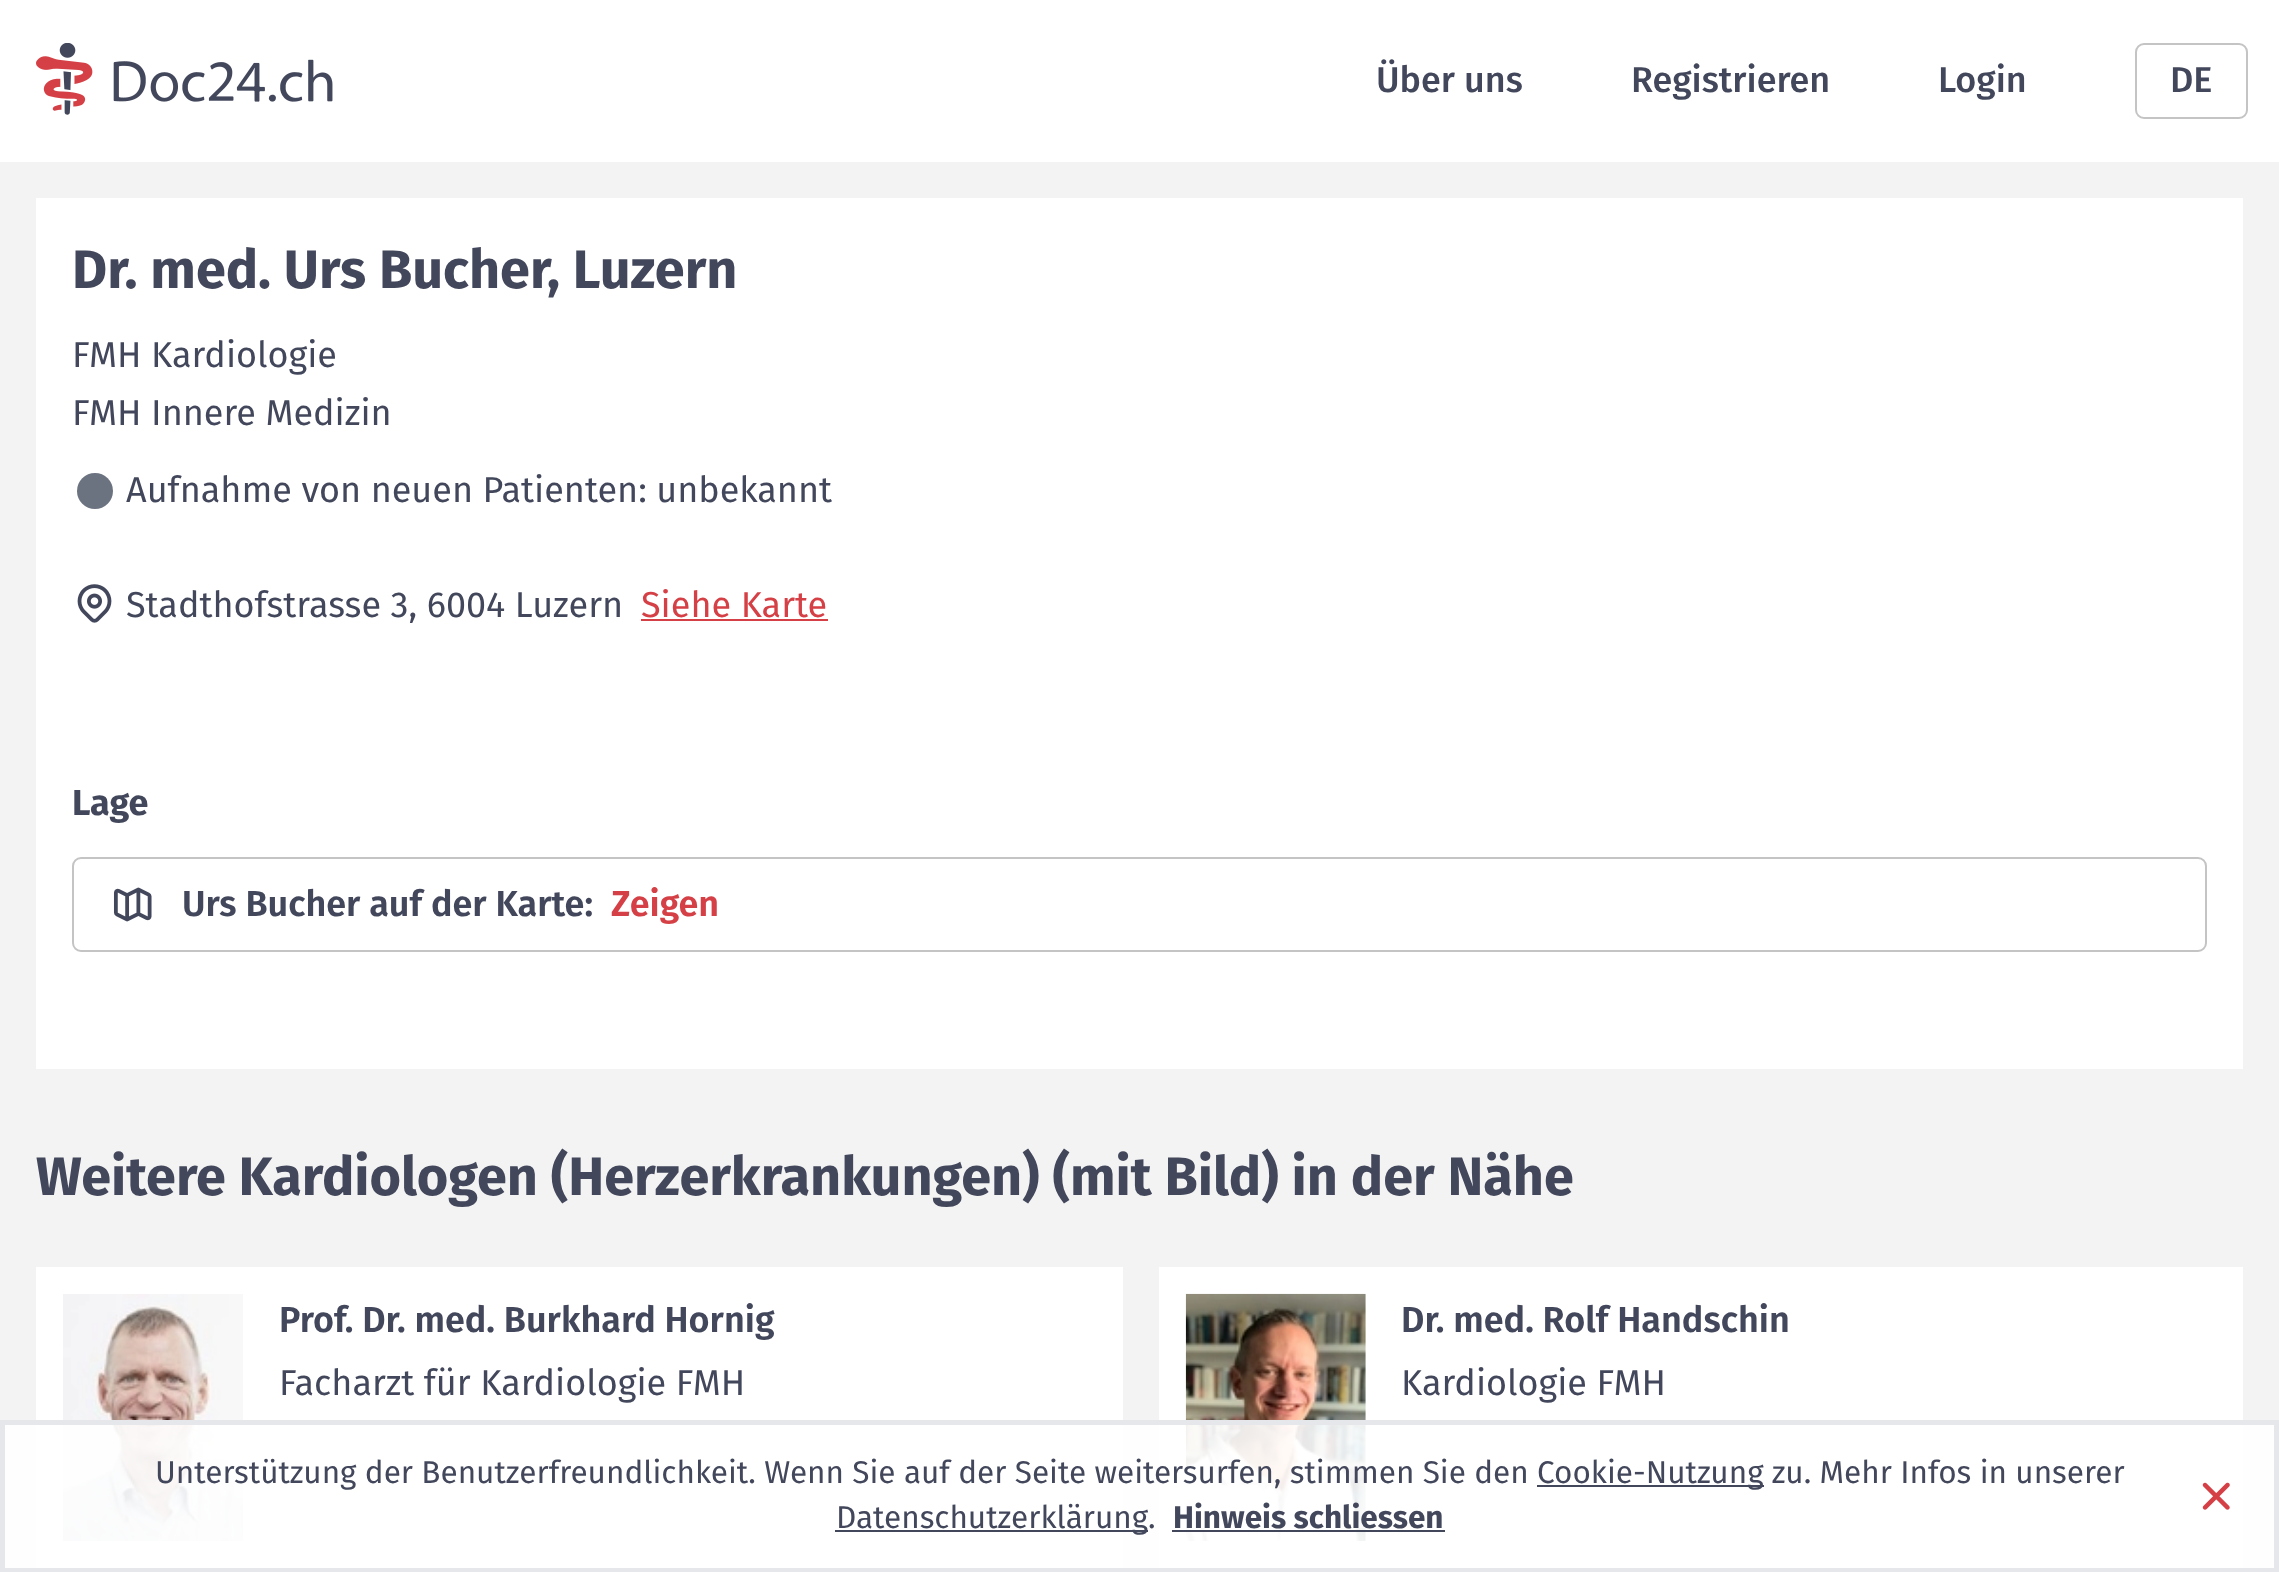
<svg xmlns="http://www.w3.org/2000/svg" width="2279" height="1572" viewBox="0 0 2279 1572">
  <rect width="100%" height="100%" fill="#f3f3f3"/>
  <rect x="0" y="0" width="2279" height="162" fill="#ffffff"/>
  <image x="36" y="43" width="297" height="72" href="img1.png"/>
  <text x="1376" y="92" font-family="Fira Sans" font-size="36" font-weight="500" fill="#42475b">Über uns</text>
  <text x="1631" y="92" font-family="Fira Sans" font-size="36" font-weight="500" fill="#42475b">Registrieren</text>
  <text x="1938" y="92" font-family="Fira Sans" font-size="36" font-weight="500" fill="#42475b">Login</text>
  <rect x="2136" y="44" width="111" height="74" rx="8" fill="none" stroke="#c4c4c4" stroke-width="2"/>
  <text x="2170" y="92" font-family="Fira Sans" font-size="36" font-weight="500" fill="#42475b">DE</text>
  <rect x="36" y="198" width="2207" height="871" fill="#ffffff"/>
  <text x="72" y="288" font-family="Fira Sans" font-size="54" font-weight="bold" fill="#42475b">Dr. med. Urs Bucher</text>
  <text x="547" y="288" font-family="Fira Sans" font-size="54" font-weight="bold" fill="#42475b">, Luzern</text>
  <text x="72" y="367" font-family="Fira Sans" font-size="36" fill="#42475b">FMH Kardiologie</text>
  <text x="72" y="425" font-family="Fira Sans" font-size="36" fill="#42475b">FMH Innere Medizin</text>
  <circle cx="95" cy="491" r="18" fill="#6b7280"/>
  <text x="126" y="502" font-family="Fira Sans" font-size="36" fill="#42475b">Aufnahme von neuen Patienten: unbekannt</text>
  <image x="77" y="584" width="35" height="39" href="img2.png"/>
  <text x="126" y="617" font-family="Fira Sans" font-size="36" fill="#42475b">Stadthofstrasse 3, 6004 Luzern</text>
  <text x="641" y="617" font-family="Fira Sans" font-size="36" fill="#d44045">Siehe Karte</text>
  <rect x="641" y="619" width="187" height="2" fill="#d44045"/>
  <text x="72" y="815" font-family="Fira Sans" font-size="36" font-weight="bold" fill="#42475b">Lage</text>
  <rect x="73" y="858" width="2133" height="93" rx="8" fill="none" stroke="#c4c4c4" stroke-width="2"/>
  <image x="113" y="887" width="39" height="35" href="img3.png"/>
  <text x="182" y="916" font-family="Fira Sans" font-size="36" font-weight="600" fill="#42475b">Urs Bucher auf der Karte:</text>
  <text x="611" y="916" font-family="Fira Sans" font-size="36" font-weight="600" fill="#d44045">Zeigen</text>
  <text x="36" y="1195" font-family="Fira Sans" font-size="54" font-weight="bold" fill="#42475b">Weitere Kardiologen (Herzerkrankungen) (mit Bild) in der Nähe</text>
  <rect x="36" y="1267" width="1087" height="301" fill="#ffffff"/>
  <image x="63" y="1294" width="180" height="247" href="img4.png"/>
  <text x="279" y="1332" font-family="Fira Sans" font-size="36" font-weight="600" fill="#42475b">Prof. Dr. med. Burkhard Hornig</text>
  <text x="279" y="1395" font-family="Fira Sans" font-size="36" fill="#42475b">Facharzt für Kardiologie FMH</text>
  <rect x="1159" y="1267" width="1084" height="301" fill="#ffffff"/>
  <image x="1185" y="1293" width="181" height="249" href="img5.png"/>
  <text x="1401" y="1332" font-family="Fira Sans" font-size="36" font-weight="600" fill="#42475b">Dr. med. Rolf Handschin</text>
  <text x="1401" y="1395" font-family="Fira Sans" font-size="36" fill="#42475b">Kardiologie FMH</text>
  <rect x="2.5" y="1422.5" width="2274" height="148" fill="#ffffff" fill-opacity="0.9" stroke="#e5e7eb" stroke-width="5"/>
  <text x="155" y="1483" font-family="Fira Sans" font-size="31.5" fill="#42475b">Unterstützung der Benutzerfreundlichkeit. Wenn Sie auf der Seite weitersurfen, stimmen Sie den</text>
  <rect x="1537" y="1485" width="227" height="2" fill="#42475b"/>
  <text x="1537" y="1483" font-family="Fira Sans" font-size="31.5" fill="#42475b">Cookie-Nutzung zu. Mehr Infos in unserer</text>
  <rect x="835" y="1530" width="313" height="2" fill="#42475b"/>
  <text x="836" y="1528" font-family="Fira Sans" font-size="31.5" fill="#42475b">Datenschutzerklärung.</text>
  <text x="1173" y="1528" font-family="Fira Sans" font-size="31.5" font-weight="bold" fill="#42475b">Hinweis schliessen</text>
  <rect x="1172" y="1530" width="273" height="2" fill="#42475b"/>
  <image x="2202" y="1482" width="28" height="28" href="img6.png"/>
</svg>
